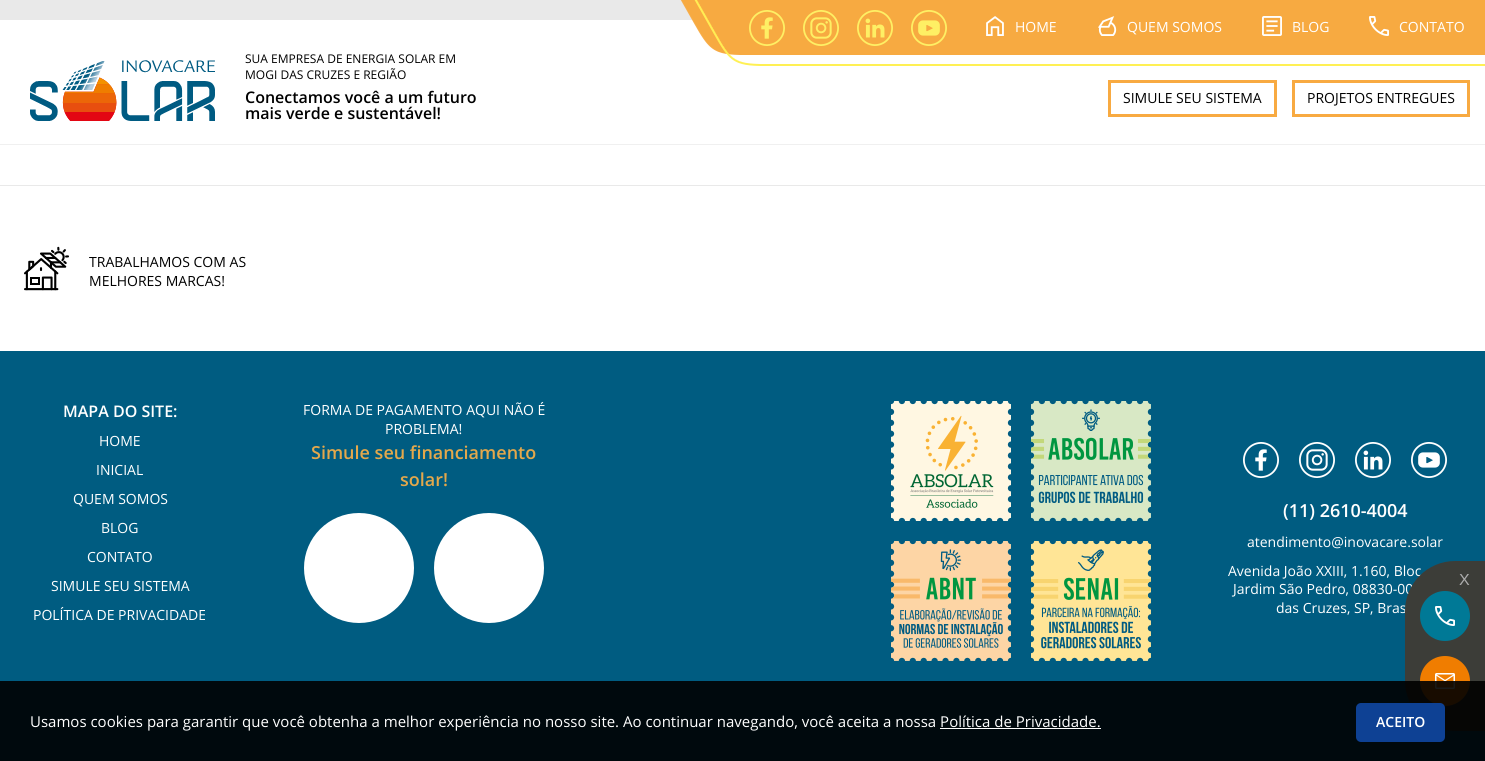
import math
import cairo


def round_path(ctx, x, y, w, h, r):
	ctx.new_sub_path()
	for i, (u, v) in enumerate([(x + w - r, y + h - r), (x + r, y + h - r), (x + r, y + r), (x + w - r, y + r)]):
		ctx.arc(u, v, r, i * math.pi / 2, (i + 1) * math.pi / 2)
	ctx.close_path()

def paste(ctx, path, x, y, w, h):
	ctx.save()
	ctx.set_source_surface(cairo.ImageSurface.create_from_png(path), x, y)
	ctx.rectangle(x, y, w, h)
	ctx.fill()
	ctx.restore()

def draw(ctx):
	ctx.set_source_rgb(1, 1, 1)
	ctx.paint()
	ctx.set_source_rgb(0.914, 0.914, 0.914)
	ctx.rectangle(0, 0, 693, 20)
	ctx.fill()
	ctx.set_source_rgb(0.941, 0.941, 0.941)
	ctx.rectangle(0, 144, 1485, 1)
	ctx.fill()
	paste(ctx, 'media/1.png', 680, 0, 805, 66)
	paste(ctx, 'media/2.png', 749, 10, 36, 36)
	paste(ctx, 'media/3.png', 803, 10, 36, 36)
	paste(ctx, 'media/4.png', 857, 10, 36, 36)
	paste(ctx, 'media/5.png', 911, 10, 36, 36)
	paste(ctx, 'media/6.png', 986, 16, 18, 20)
	ctx.select_font_face('Open Sans')
	ctx.set_font_size(14)
	ctx.set_source_rgb(1, 1, 1)
	ctx.move_to(1015, 32)
	ctx.show_text('HOME')
	paste(ctx, 'media/7.png', 1098, 16, 19, 20)
	ctx.move_to(1127, 32)
	ctx.show_text('QUEM SOMOS')
	paste(ctx, 'media/8.png', 1262, 16, 20, 20)
	ctx.move_to(1292, 32)
	ctx.show_text('BLOG')
	paste(ctx, 'media/9.png', 1369, 16, 20, 20)
	ctx.move_to(1399, 32)
	ctx.show_text('CONTATO')
	paste(ctx, 'media/10.png', 30, 60, 185, 61)
	ctx.set_font_size(12)
	ctx.set_source_rgb(0, 0, 0)
	ctx.move_to(245, 63)
	ctx.show_text('SUA EMPRESA DE ENERGIA SOLAR EM')
	ctx.move_to(245, 79)
	ctx.show_text('MOGI DAS CRUZES E REGIÃO')
	ctx.select_font_face('Open Sans SemiBold')
	ctx.set_font_size(16)
	ctx.move_to(245, 103)
	ctx.show_text('Conectamos você a um futuro')
	ctx.move_to(245, 119)
	ctx.show_text('mais verde e sustentável!')
	ctx.rectangle(1109.5, 81.5, 166, 34)
	ctx.set_source_rgb(0.969, 0.667, 0.255)
	ctx.set_line_width(3)
	ctx.stroke()
	ctx.select_font_face('Open Sans')
	ctx.set_font_size(14)
	ctx.set_source_rgb(0, 0, 0)
	ctx.move_to(1123, 103)
	ctx.show_text('SIMULE SEU SISTEMA')
	ctx.rectangle(1293.5, 81.5, 175, 34)
	ctx.set_source_rgb(0.969, 0.667, 0.255)
	ctx.stroke()
	ctx.set_source_rgb(0, 0, 0)
	ctx.move_to(1307, 103)
	ctx.show_text('PROJETOS ENTREGUES')
	ctx.set_source_rgb(0, 0.361, 0.506)
	ctx.rectangle(0, 351, 1485, 410)
	ctx.fill()
	ctx.set_source_rgb(1, 1, 1)
	for x, y, s in [
		(1228, 576, 'Avenida João XXIII, 1.160, Bloc'),
		(1233, 594, 'Jardim São Pedro, 08830-00'),
		(1276, 613, 'das Cruzes, SP, Bras'),
	]:
		ctx.move_to(x, y)
		ctx.show_text(s)
	ctx.set_source_rgb(0.235, 0.239, 0.22)
	ctx.new_path()
	ctx.move_to(1455, 561)
	ctx.line_to(1485, 561)
	ctx.line_to(1485, 731)
	ctx.line_to(1455, 731)
	ctx.curve_to(1427.5, 731, 1405, 708.5, 1405, 681)
	ctx.line_to(1405, 611)
	ctx.curve_to(1405, 583.5, 1427.5, 561, 1455, 561)
	ctx.close_path()
	ctx.fill()
	ctx.select_font_face('Liberation Sans')
	ctx.set_font_size(16)
	ctx.set_source_rgb(0.675, 0.675, 0.675)
	ctx.move_to(1459, 585)
	ctx.show_text('X')
	ctx.set_source_rgb(0, 0.475, 0.588)
	ctx.new_path()
	ctx.arc(1445, 616, 25, 0, 2 * math.pi)
	ctx.fill()
	paste(ctx, 'media/11.png', 1435, 606, 20, 20)
	ctx.set_source_rgb(0.941, 0.49, 0)
	ctx.arc(1445, 681, 25, 0, 2 * math.pi)
	ctx.fill()
	paste(ctx, 'media/12.png', 1435, 673, 20, 16)
	ctx.set_source_rgb(0.914, 0.914, 0.914)
	ctx.rectangle(0, 185, 1485, 1)
	ctx.fill()
	paste(ctx, 'media/13.png', 24, 246, 45, 45)
	ctx.select_font_face('Open Sans')
	ctx.set_font_size(14)
	ctx.set_source_rgb(0, 0, 0)
	ctx.move_to(89, 267)
	ctx.show_text('TRABALHAMOS COM AS')
	ctx.move_to(89, 286)
	ctx.show_text('MELHORES MARCAS!')
	ctx.select_font_face('Open Sans SemiBold')
	ctx.set_font_size(16)
	ctx.set_source_rgb(1, 1, 1)
	ctx.move_to(63, 417)
	ctx.show_text('MAPA DO SITE:')
	ctx.select_font_face('Open Sans')
	ctx.set_font_size(14)
	for x, y, s in [
		(99, 446, 'HOME'),
		(96, 475, 'INICIAL'),
		(73, 504, 'QUEM SOMOS'),
		(101, 533, 'BLOG'),
		(87, 562, 'CONTATO'),
		(51, 591, 'SIMULE SEU SISTEMA'),
		(33, 620, 'POLÍTICA DE PRIVACIDADE'),
		(303, 415, 'FORMA DE PAGAMENTO AQUI NÃO É'),
		(385, 434, 'PROBLEMA!'),
	]:
		ctx.move_to(x, y)
		ctx.show_text(s)
	ctx.select_font_face('Open Sans SemiBold')
	ctx.set_font_size(18)
	ctx.set_source_rgb(0.894, 0.659, 0.294)
	ctx.move_to(311, 459)
	ctx.show_text('Simule seu financiamento')
	ctx.move_to(400, 486)
	ctx.show_text('solar!')
	ctx.set_source_rgb(1, 1, 1)
	ctx.new_path()
	ctx.arc(359, 568, 55, 0, 2 * math.pi)
	ctx.fill()
	ctx.arc(489, 568, 55, 0, 2 * math.pi)
	ctx.fill()
	paste(ctx, 'media/14.png', 891, 401, 120, 120)
	paste(ctx, 'media/15.png', 1031, 401, 120, 120)
	paste(ctx, 'media/16.png', 891, 541, 120, 120)
	paste(ctx, 'media/17.png', 1031, 541, 120, 120)
	paste(ctx, 'media/18.png', 1243, 442, 36, 36)
	paste(ctx, 'media/19.png', 1299, 442, 36, 36)
	paste(ctx, 'media/20.png', 1355, 442, 36, 36)
	paste(ctx, 'media/21.png', 1411, 442, 36, 36)
	ctx.move_to(1283, 517)
	ctx.show_text('(11) 2610-4004')
	ctx.select_font_face('Open Sans')
	ctx.set_font_size(14)
	ctx.move_to(1247, 547)
	ctx.show_text('atendimento@inovacare.solar')
	ctx.set_source_rgba(0, 0, 0, 0.9)
	ctx.rectangle(0, 681, 1485, 80)
	ctx.fill()
	ctx.set_font_size(15)
	ctx.set_source_rgb(1, 1, 1)
	ctx.move_to(30, 727)
	ctx.show_text('Usamos cookies para garantir que você obtenha a melhor experiência no nosso site. Ao continuar navegando, você aceita a nossa Política de Privacidade.')
	ctx.rectangle(940, 728, 161, 1)
	ctx.fill()
	ctx.set_source_rgb(0.055, 0.255, 0.58)
	round_path(ctx, 1356, 703, 89, 39, 5)
	ctx.fill()
	ctx.select_font_face('Open Sans SemiBold')
	ctx.set_font_size(14)
	ctx.set_source_rgb(1, 1, 1)
	ctx.move_to(1376, 727)
	ctx.show_text('ACEITO')


surface = cairo.ImageSurface(cairo.FORMAT_RGB24, 1485, 761)
ctx = cairo.Context(surface)
options = cairo.FontOptions()
options.set_hint_metrics(cairo.HINT_METRICS_OFF)
options.set_hint_style(cairo.HINT_STYLE_NONE)
ctx.set_font_options(options)
ctx.set_miter_limit(4)
draw(ctx)
surface.write_to_png('image.png')
